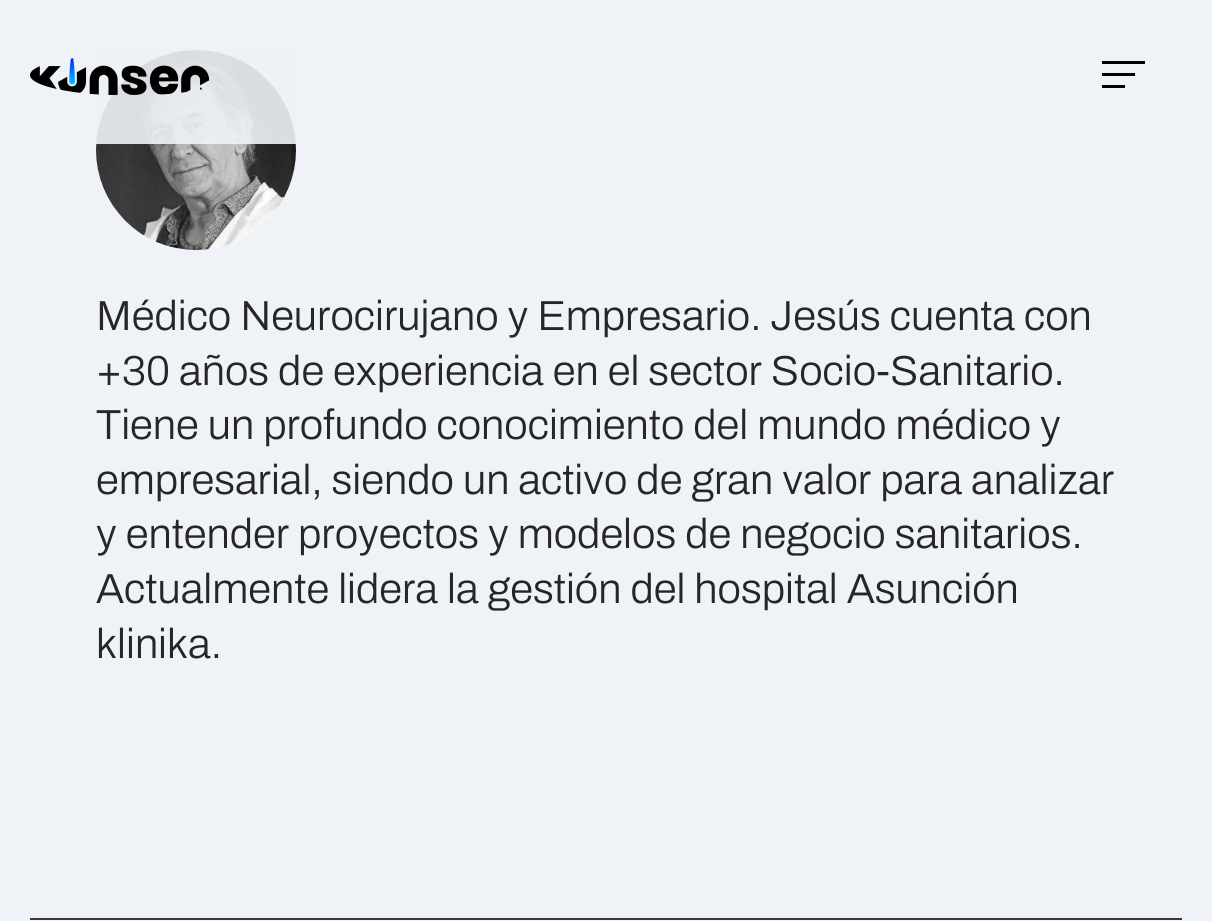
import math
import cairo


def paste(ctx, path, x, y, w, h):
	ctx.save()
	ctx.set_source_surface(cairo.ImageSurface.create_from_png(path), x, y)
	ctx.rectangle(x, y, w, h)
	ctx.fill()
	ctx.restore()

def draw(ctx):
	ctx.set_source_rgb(0.937, 0.949, 0.965)
	ctx.paint()
	paste(ctx, 'media/2.png', 96, 50, 200, 200)
	ctx.set_source_rgba(0.937, 0.949, 0.965, 0.9)
	ctx.rectangle(96, 50, 200, 94)
	ctx.fill()
	paste(ctx, 'media/1.png', 30, 58, 180, 37)
	ctx.set_source_rgb(0, 0, 0)
	ctx.new_path()
	ctx.move_to(1102, 61)
	ctx.line_to(1145, 61)
	ctx.line_to(1145, 64)
	ctx.line_to(1102, 64)
	ctx.close_path()
	ctx.move_to(1102, 73)
	ctx.line_to(1135, 73)
	ctx.line_to(1135, 76)
	ctx.line_to(1102, 76)
	ctx.close_path()
	ctx.move_to(1102, 85)
	ctx.line_to(1125, 85)
	ctx.line_to(1125, 88)
	ctx.line_to(1102, 88)
	ctx.close_path()
	ctx.fill()
	ctx.select_font_face('Archivo Light')
	ctx.set_font_size(42)
	ctx.set_source_rgb(0.149, 0.149, 0.149)
	for x, y, s in [
		(96, 330, 'Médico Neurocirujano y Empresario. Jesús cuenta con'),
		(96, 385, '+30 años de experiencia en el sector Socio-Sanitario.'),
		(96, 439, 'Tiene un profundo conocimiento del mundo médico y'),
		(96, 494, 'empresarial, siendo un activo de gran valor para analizar'),
		(96, 548, 'y entender proyectos y modelos de negocio sanitarios.'),
		(96, 603, 'Actualmente lidera la gestión del hospital Asunción'),
		(96, 658, 'klinika.'),
	]:
		ctx.move_to(x, y)
		ctx.show_text(s)
	ctx.set_source_rgb(0.231, 0.231, 0.231)
	ctx.rectangle(30, 918, 1152, 2)
	ctx.fill()


surface = cairo.ImageSurface(cairo.FORMAT_RGB24, 1212, 921)
ctx = cairo.Context(surface)
options = cairo.FontOptions()
options.set_hint_metrics(cairo.HINT_METRICS_OFF)
options.set_hint_style(cairo.HINT_STYLE_NONE)
ctx.set_font_options(options)
ctx.set_miter_limit(4)
draw(ctx)
surface.write_to_png('image.png')
